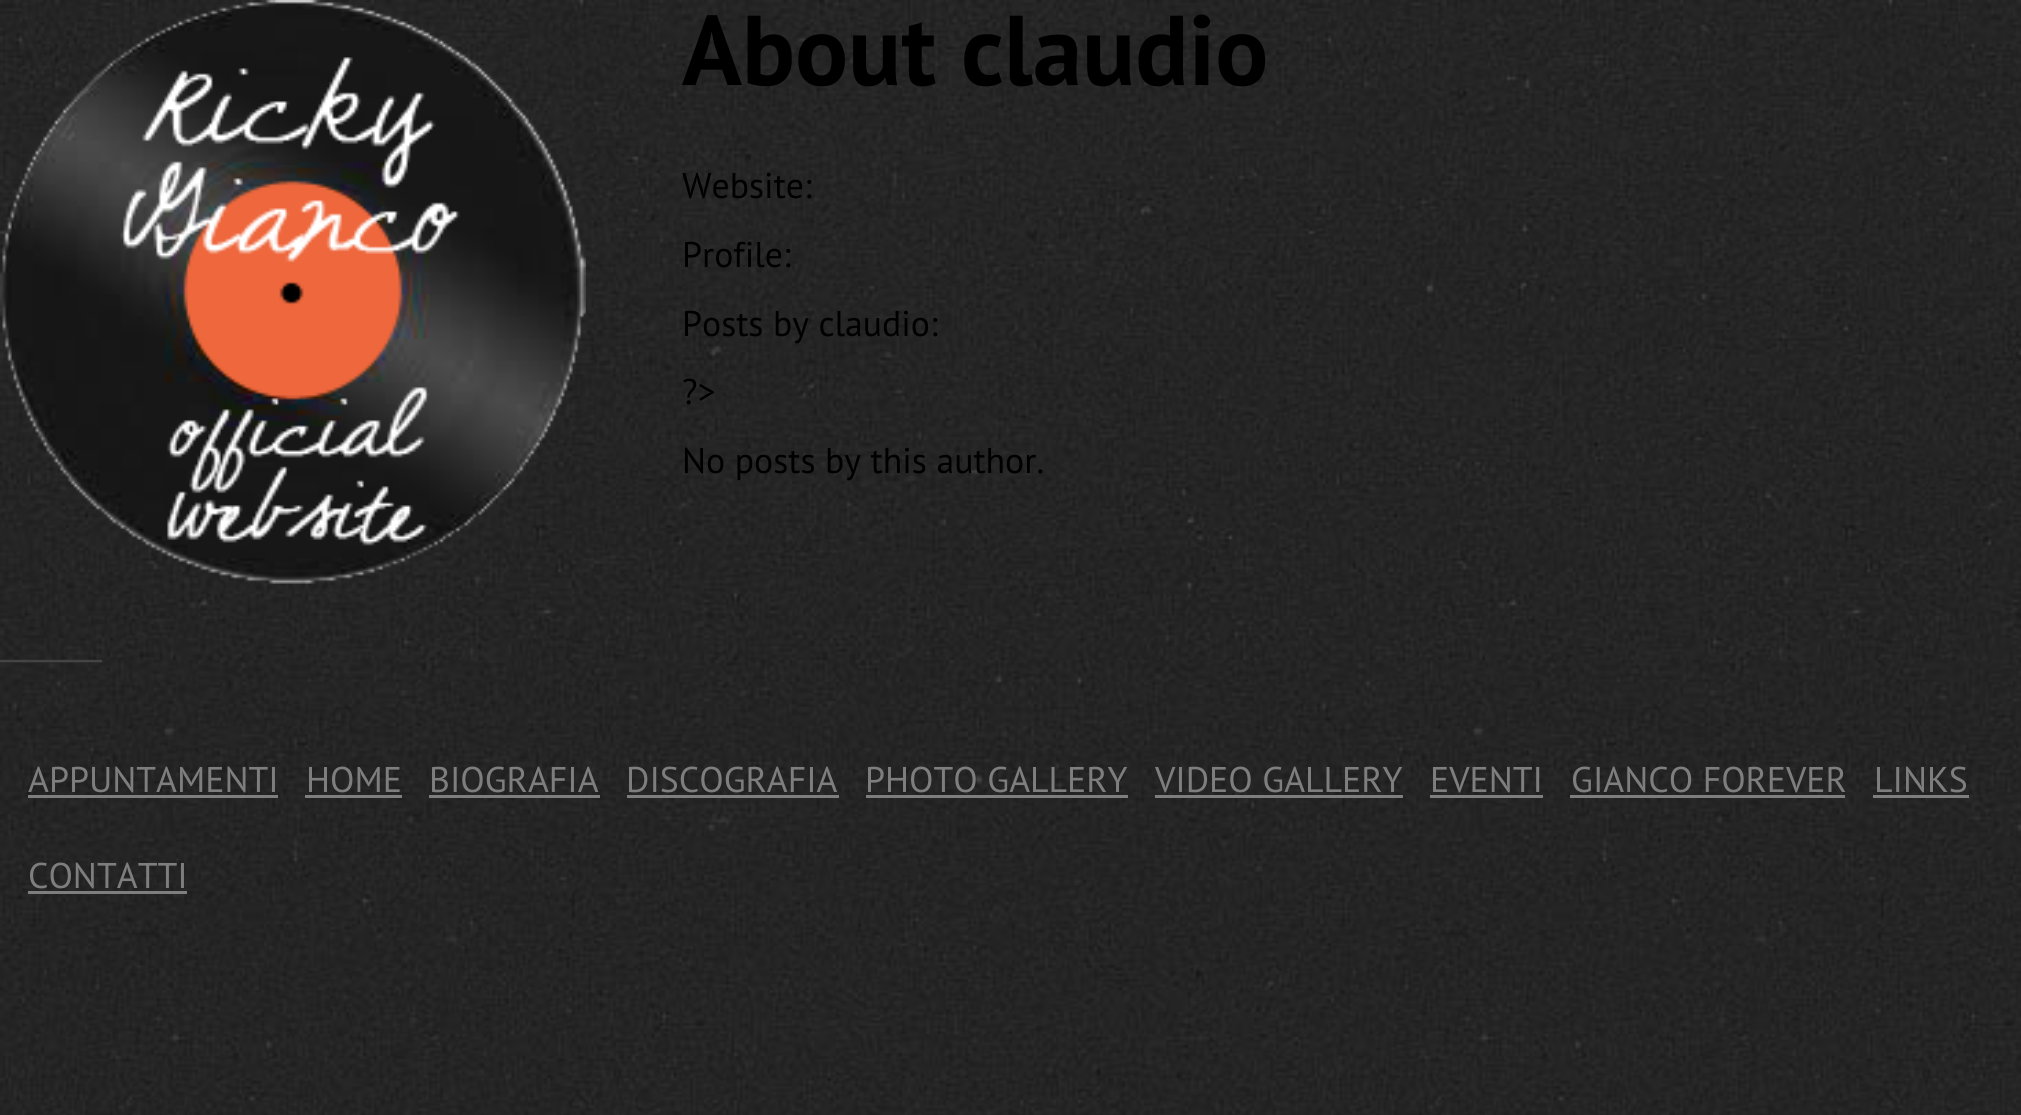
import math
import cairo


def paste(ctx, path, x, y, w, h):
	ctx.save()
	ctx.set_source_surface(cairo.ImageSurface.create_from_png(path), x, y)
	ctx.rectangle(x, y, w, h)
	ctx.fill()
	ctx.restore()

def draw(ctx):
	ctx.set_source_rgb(1, 1, 1)
	ctx.paint()
	paste(ctx, 'media/1.png', 0, 0, 2021, 1115)
	paste(ctx, 'media/2.png', 0, 0, 586, 584)
	ctx.select_font_face('PT Sans', cairo.FONT_SLANT_NORMAL, cairo.FONT_WEIGHT_BOLD)
	ctx.set_font_size(99)
	ctx.set_source_rgb(0, 0, 0)
	ctx.move_to(682, 85)
	ctx.show_text('About claudio')
	ctx.select_font_face('PT Sans')
	ctx.set_font_size(35.75)
	for x, y, s in [
		(682, 198, 'Website:'),
		(682, 267, 'Profile:'),
		(682, 336, 'Posts by claudio:'),
		(682, 404, '?>'),
		(682, 473, 'No posts by this author.'),
	]:
		ctx.move_to(x, y)
		ctx.show_text(s)
	ctx.set_source_rgb(0.267, 0.267, 0.267)
	ctx.move_to(0, 655)
	ctx.show_text('_______')
	ctx.set_source_rgb(0.494, 0.494, 0.494)
	ctx.move_to(28, 792)
	ctx.show_text('APPUNTAMENTI')
	ctx.rectangle(28, 795, 250, 3)
	ctx.fill()
	ctx.move_to(306, 792)
	ctx.show_text('HOME')
	ctx.rectangle(305, 795, 97, 3)
	ctx.fill()
	ctx.move_to(429, 792)
	ctx.show_text('BIOGRAFIA')
	ctx.rectangle(429, 795, 171, 3)
	ctx.fill()
	ctx.move_to(626, 792)
	ctx.show_text('DISCOGRAFIA')
	ctx.rectangle(627, 795, 212, 3)
	ctx.fill()
	ctx.move_to(865, 792)
	ctx.show_text('PHOTO GALLERY')
	ctx.rectangle(866, 795, 262, 3)
	ctx.fill()
	ctx.move_to(1155, 792)
	ctx.show_text('VIDEO GALLERY')
	ctx.rectangle(1155, 795, 248, 3)
	ctx.fill()
	ctx.move_to(1430, 792)
	ctx.show_text('EVENTI')
	ctx.rectangle(1430, 795, 113, 3)
	ctx.fill()
	ctx.move_to(1571, 792)
	ctx.show_text('GIANCO FOREVER')
	ctx.rectangle(1570, 795, 275, 3)
	ctx.fill()
	ctx.move_to(1874, 792)
	ctx.show_text('LINKS')
	ctx.rectangle(1873, 795, 96, 3)
	ctx.fill()
	ctx.move_to(28, 888)
	ctx.show_text('CONTATTI')
	ctx.rectangle(28, 891, 159, 3)
	ctx.fill()


surface = cairo.ImageSurface(cairo.FORMAT_RGB24, 2021, 1115)
ctx = cairo.Context(surface)
options = cairo.FontOptions()
options.set_hint_metrics(cairo.HINT_METRICS_OFF)
options.set_hint_style(cairo.HINT_STYLE_NONE)
ctx.set_font_options(options)
ctx.set_miter_limit(4)
draw(ctx)
surface.write_to_png('image.png')
